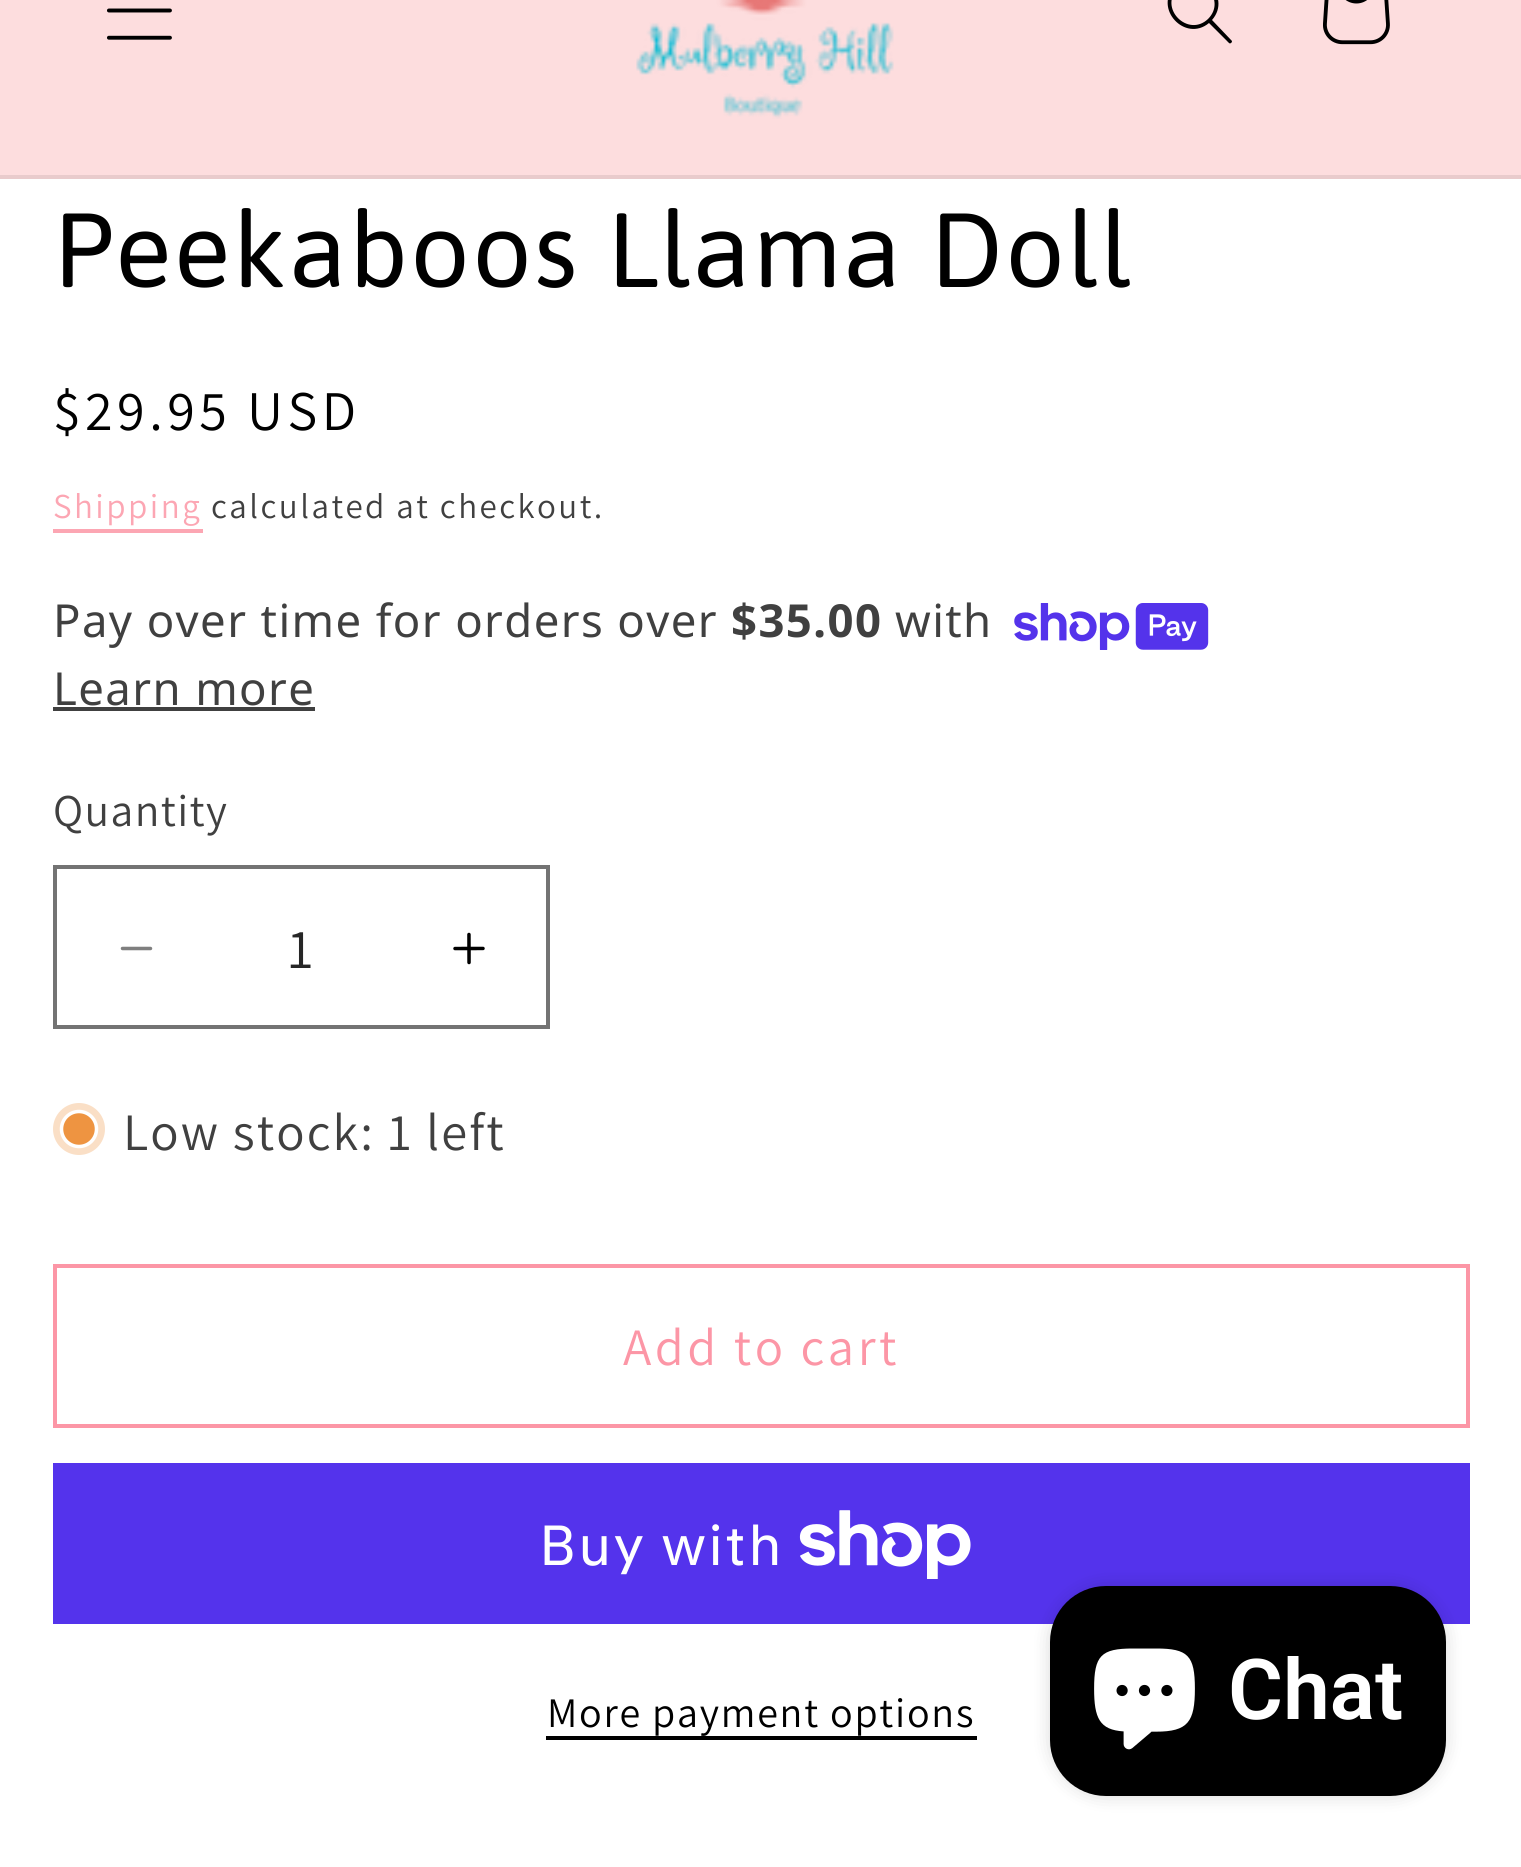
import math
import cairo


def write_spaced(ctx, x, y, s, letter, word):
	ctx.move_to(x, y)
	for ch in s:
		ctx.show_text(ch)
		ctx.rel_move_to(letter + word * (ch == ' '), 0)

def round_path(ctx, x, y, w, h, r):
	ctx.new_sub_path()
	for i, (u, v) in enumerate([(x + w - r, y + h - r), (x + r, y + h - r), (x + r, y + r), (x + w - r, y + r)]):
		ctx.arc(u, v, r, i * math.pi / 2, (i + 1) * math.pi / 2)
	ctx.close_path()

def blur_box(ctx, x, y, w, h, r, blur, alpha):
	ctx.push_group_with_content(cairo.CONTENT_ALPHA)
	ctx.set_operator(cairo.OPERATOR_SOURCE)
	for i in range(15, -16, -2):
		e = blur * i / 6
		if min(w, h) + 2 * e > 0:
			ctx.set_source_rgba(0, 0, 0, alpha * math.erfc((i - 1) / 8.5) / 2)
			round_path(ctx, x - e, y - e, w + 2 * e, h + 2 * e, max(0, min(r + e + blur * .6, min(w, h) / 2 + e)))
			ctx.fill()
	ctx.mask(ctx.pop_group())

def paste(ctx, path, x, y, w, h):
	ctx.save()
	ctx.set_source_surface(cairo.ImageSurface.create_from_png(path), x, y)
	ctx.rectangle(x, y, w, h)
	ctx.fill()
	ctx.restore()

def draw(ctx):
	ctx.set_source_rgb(1, 1, 1)
	ctx.paint()
	ctx.set_source_rgb(0.992, 0.867, 0.871)
	ctx.rectangle(0, 0, 1521, 175)
	ctx.fill()
	ctx.set_source_rgb(0.914, 0.796, 0.8)
	ctx.rectangle(0, 175, 1521, 4)
	ctx.fill()
	paste(ctx, 'media/1.png', 107, 8, 65, 32)
	paste(ctx, 'media/2.png', 636, 0, 258, 119)
	ctx.set_source_rgb(0, 0, 0)
	ctx.set_fill_rule(cairo.FILL_RULE_EVEN_ODD)
	ctx.new_path()
	ctx.move_to(1208, 19)
	ctx.curve_to(1188, 38, 1158, 8, 1178, -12)
	ctx.curve_to(1198, -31, 1228, -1, 1208, 19)
	ctx.move_to(1209, 23)
	ctx.curve_to(1185, 43, 1153, 8, 1175, -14)
	ctx.curve_to(1198, -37, 1233, -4, 1212, 20)
	ctx.line_to(1232, 41)
	ctx.curve_to(1232, 43, 1230, 44, 1229, 43)
	ctx.close_path()
	ctx.fill()
	paste(ctx, 'media/3.png', 1323, 0, 67, 45)
	ctx.select_font_face('Asap')
	ctx.set_font_size(105)
	write_spaced(ctx, 53, 287, 'Peekaboos Llama Doll', 2.1, 0)
	ctx.select_font_face('Assistant')
	ctx.set_font_size(56)
	write_spaced(ctx, 53, 430, '$29.95 USD', 4.5, 0)
	ctx.set_font_size(35)
	ctx.set_source_rgb(0.988, 0.651, 0.702)
	write_spaced(ctx, 53, 518, 'Shipping', 2.45, 0)
	ctx.rectangle(53, 529, 150, 4)
	ctx.fill()
	ctx.set_source_rgb(0.251, 0.251, 0.251)
	write_spaced(ctx, 211, 518, 'calculated at checkout.', 2.45, 0)
	ctx.select_font_face('Noto Sans')
	ctx.set_font_size(45.5)
	write_spaced(ctx, 53, 637, 'Pay over time for orders over', 1.4, 0)
	ctx.select_font_face('Noto Sans', cairo.FONT_SLANT_NORMAL, cairo.FONT_WEIGHT_BOLD)
	write_spaced(ctx, 731, 637, '$35.00', 1.4, 0)
	ctx.select_font_face('Noto Sans')
	write_spaced(ctx, 895, 637, 'with', 1.4, 0)
	paste(ctx, 'media/4.png', 1014, 603, 195, 47)
	write_spaced(ctx, 53, 705, 'Learn more', 1.4, 0)
	ctx.rectangle(53, 707, 262, 4)
	ctx.fill()
	ctx.select_font_face('Assistant')
	write_spaced(ctx, 53, 826, 'Quantity', 1.4, 0)
	paste(ctx, 'media/5.png', 120, 946, 33, 5)
	paste(ctx, 'media/6.png', 453, 932, 32, 33)
	ctx.rectangle(55, 867, 493, 160)
	ctx.set_source_rgb(0.451, 0.451, 0.451)
	ctx.set_line_width(4)
	ctx.stroke()
	ctx.set_font_size(56)
	ctx.set_source_rgb(0.149, 0.149, 0.149)
	ctx.move_to(288, 968)
	ctx.show_text('1')
	ctx.set_source_rgb(0.98, 0.875, 0.776)
	ctx.new_path()
	ctx.arc(79, 1129, 26, 0, 2 * math.pi)
	ctx.fill()
	ctx.set_source_rgb(0.933, 0.58, 0.255)
	ctx.arc(79, 1129, 17.5, 0, 2 * math.pi)
	ctx.fill_preserve()
	ctx.set_source_rgb(1, 1, 1)
	ctx.set_line_width(3.5)
	ctx.stroke()
	ctx.set_font_size(52.5)
	ctx.set_source_rgb(0.251, 0.251, 0.251)
	write_spaced(ctx, 123, 1150, 'Low stock: 1 left', 2.1, 0)
	ctx.rectangle(55, 1266, 1413, 160)
	ctx.set_source_rgb(0.988, 0.588, 0.651)
	ctx.set_line_width(4)
	ctx.stroke()
	write_spaced(ctx, 623, 1365, 'Add to cart', 3.5, 0)
	ctx.set_source_rgb(0.329, 0.2, 0.922)
	ctx.rectangle(53, 1463, 1417, 161)
	ctx.fill()
	ctx.select_font_face('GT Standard')
	ctx.set_font_size(56)
	ctx.set_source_rgb(1, 1, 1)
	write_spaced(ctx, 539, 1565, 'Buy with', 2.1, 0)
	paste(ctx, 'media/7.png', 799, 1510, 172, 69)
	ctx.select_font_face('Assistant')
	ctx.set_font_size(42)
	ctx.set_source_rgb(0, 0, 0)
	write_spaced(ctx, 547, 1727, 'More payment options', 1.75, 0)
	ctx.rectangle(546, 1736, 431, 4)
	ctx.fill()
	ctx.set_source_rgb(0, 0, 0)
	blur_box(ctx, 1050, 1586, 396, 210, 56, 9, 0.15)
	ctx.set_source_rgb(0, 0, 0)
	round_path(ctx, 1050, 1586, 396, 210, 56)
	ctx.fill()
	paste(ctx, 'media/8.png', 1094, 1648, 101, 102)
	ctx.select_font_face('Roboto SemiBold')
	ctx.set_font_size(84)
	ctx.set_source_rgb(1, 1, 1)
	ctx.move_to(1228, 1719)
	ctx.show_text('Chat')


surface = cairo.ImageSurface(cairo.FORMAT_RGB24, 1521, 1867)
ctx = cairo.Context(surface)
options = cairo.FontOptions()
options.set_hint_metrics(cairo.HINT_METRICS_OFF)
options.set_hint_style(cairo.HINT_STYLE_NONE)
ctx.set_font_options(options)
ctx.set_miter_limit(4)
draw(ctx)
surface.write_to_png('image.png')
